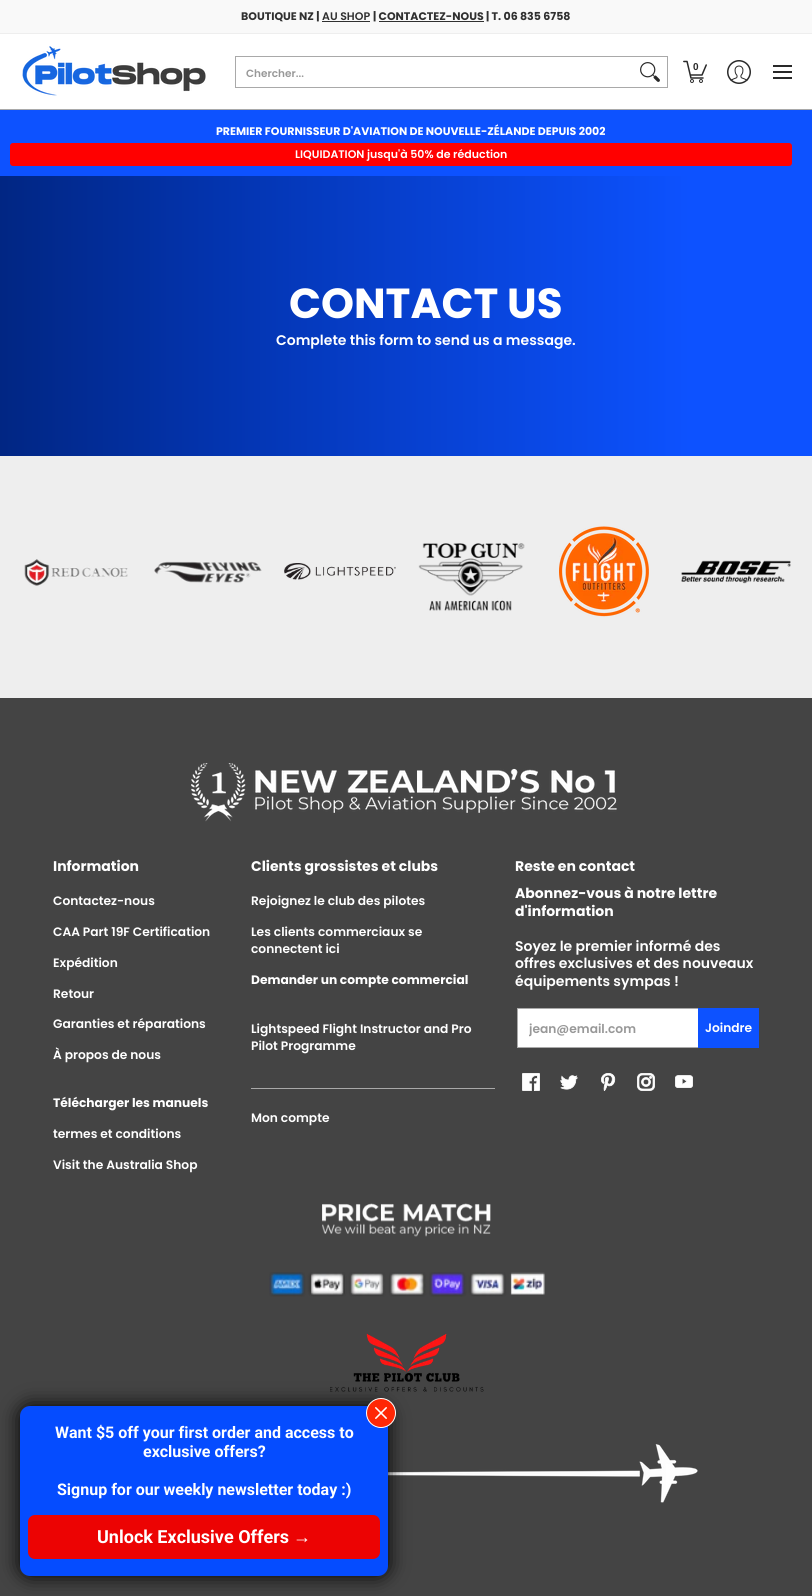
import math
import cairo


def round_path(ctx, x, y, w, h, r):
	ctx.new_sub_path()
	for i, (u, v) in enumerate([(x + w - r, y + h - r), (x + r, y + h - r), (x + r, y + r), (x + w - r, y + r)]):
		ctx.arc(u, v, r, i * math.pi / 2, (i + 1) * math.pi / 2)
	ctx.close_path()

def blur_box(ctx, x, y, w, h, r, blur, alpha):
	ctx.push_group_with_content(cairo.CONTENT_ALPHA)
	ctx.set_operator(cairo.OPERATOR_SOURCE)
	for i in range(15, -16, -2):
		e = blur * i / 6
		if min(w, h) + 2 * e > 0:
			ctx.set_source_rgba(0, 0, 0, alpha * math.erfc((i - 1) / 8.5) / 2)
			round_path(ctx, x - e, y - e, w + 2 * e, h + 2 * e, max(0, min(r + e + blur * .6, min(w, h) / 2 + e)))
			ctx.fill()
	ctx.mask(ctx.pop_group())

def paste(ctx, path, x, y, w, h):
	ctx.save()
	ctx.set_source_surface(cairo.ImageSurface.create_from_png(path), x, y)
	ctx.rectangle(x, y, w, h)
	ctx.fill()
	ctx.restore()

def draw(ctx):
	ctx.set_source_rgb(1, 1, 1)
	ctx.paint()
	ctx.set_source_rgb(0.976, 0.976, 0.976)
	ctx.rectangle(0, 0, 812, 33)
	ctx.fill()
	ctx.set_source_rgb(0.933, 0.933, 0.933)
	ctx.rectangle(0, 33, 812, 1)
	ctx.fill()
	ctx.select_font_face('Poppins', cairo.FONT_SLANT_NORMAL, cairo.FONT_WEIGHT_BOLD)
	ctx.set_font_size(11)
	ctx.set_source_rgb(0.188, 0.188, 0.188)
	ctx.move_to(241, 20)
	ctx.show_text('BOUTIQUE NZ |')
	ctx.select_font_face('Poppins SemiBold')
	ctx.move_to(322, 20)
	ctx.show_text('AU SHOP')
	ctx.rectangle(322, 21, 48, 1)
	ctx.fill()
	ctx.select_font_face('Poppins', cairo.FONT_SLANT_NORMAL, cairo.FONT_WEIGHT_BOLD)
	ctx.move_to(373, 20)
	ctx.show_text('| CONTACTEZ-NOUS')
	ctx.move_to(486, 20)
	ctx.show_text('| T. 06 835 6758')
	ctx.rectangle(379, 21, 105, 1)
	ctx.fill()
	ctx.set_source_rgb(0.663, 0.663, 0.663)
	ctx.rectangle(0, 109, 812, 1)
	ctx.fill()
	paste(ctx, 'media/1.png', 22, 46, 184, 50)
	ctx.rectangle(235.5, 56.5, 432, 31)
	ctx.set_line_width(1)
	ctx.stroke()
	ctx.select_font_face('Poppins SemiBold')
	ctx.set_font_size(10.5)
	ctx.set_source_rgb(0.596, 0.596, 0.596)
	ctx.move_to(246, 77)
	ctx.show_text('Chercher...')
	paste(ctx, 'media/2.png', 640, 62, 20, 20)
	paste(ctx, 'media/3.png', 683, 60, 24, 23)
	ctx.select_font_face('Liberation Sans', cairo.FONT_SLANT_NORMAL, cairo.FONT_WEIGHT_BOLD)
	ctx.set_font_size(10)
	ctx.set_source_rgb(0.161, 0.161, 0.161)
	ctx.move_to(693, 70)
	ctx.show_text('0')
	paste(ctx, 'media/4.png', 727, 60, 24, 24)
	ctx.rectangle(773, 65, 19, 2)
	ctx.rectangle(773, 77, 19, 2)
	ctx.rectangle(773, 71, 19, 2)
	ctx.fill()
	ctx.set_source_rgb(0.051, 0.322, 1)
	ctx.rectangle(0, 110, 812, 66)
	ctx.fill()
	ctx.select_font_face('Poppins', cairo.FONT_SLANT_NORMAL, cairo.FONT_WEIGHT_BOLD)
	ctx.set_font_size(11)
	ctx.set_source_rgb(1, 1, 1)
	ctx.move_to(216, 135)
	ctx.show_text('PREMIER FOURNISSEUR D\'AVIATION DE NOUVELLE-ZÉLANDE DEPUIS 2002')
	ctx.set_source_rgb(1, 0, 0)
	round_path(ctx, 10, 143, 782, 23, 3)
	ctx.fill()
	ctx.select_font_face('Poppins SemiBold')
	ctx.set_source_rgb(1, 1, 1)
	ctx.move_to(295, 158)
	ctx.show_text('LIQUIDATION jusqu\'à 50% de réduction')
	gradient = cairo.LinearGradient(0, 316, 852, 316)
	gradient.add_color_stop_rgba(0, 0.004, 0.149, 0.514, 1)
	gradient.add_color_stop_rgba(0.26, 0.012, 0.204, 0.686, 1)
	gradient.add_color_stop_rgba(0.81, 0.051, 0.322, 1, 1)
	ctx.set_source(gradient)
	ctx.rectangle(0, 176, 812, 280)
	ctx.fill()
	ctx.select_font_face('Poppins', cairo.FONT_SLANT_NORMAL, cairo.FONT_WEIGHT_BOLD)
	ctx.set_font_size(42)
	ctx.set_source_rgb(1, 1, 1)
	ctx.move_to(289, 318)
	ctx.show_text('CONTACT US')
	ctx.select_font_face('Poppins SemiBold')
	ctx.set_font_size(14)
	ctx.move_to(276, 345)
	ctx.show_text('Complete this form to send us a message.')
	ctx.set_source_rgb(0.933, 0.933, 0.933)
	ctx.rectangle(0, 456, 812, 242)
	ctx.fill()
	paste(ctx, 'media/5.png', 24, 559, 104, 27)
	paste(ctx, 'media/6.png', 154, 561, 108, 22)
	paste(ctx, 'media/7.png', 284, 563, 112, 17)
	paste(ctx, 'media/8.png', 418, 543, 107, 68)
	paste(ctx, 'media/9.png', 559, 526, 90, 91)
	paste(ctx, 'media/10.png', 681, 560, 110, 24)
	ctx.set_source_rgb(0.267, 0.267, 0.267)
	ctx.rectangle(0, 698, 812, 898)
	ctx.fill()
	paste(ctx, 'media/11.png', 191, 763, 426, 59)
	ctx.select_font_face('Poppins', cairo.FONT_SLANT_NORMAL, cairo.FONT_WEIGHT_BOLD)
	ctx.set_source_rgb(1, 1, 1)
	ctx.move_to(53, 871)
	ctx.show_text('Information')
	ctx.select_font_face('Poppins SemiBold')
	ctx.set_font_size(12.25)
	for x, y, s in [
		(53, 905, 'Contactez-nous'),
		(53, 936, 'CAA Part 19F Certification'),
		(53, 967, 'Expédition'),
		(53, 998, 'Retour'),
		(53, 1028, 'Garanties et réparations'),
		(53, 1059, 'À propos de nous'),
	]:
		ctx.move_to(x, y)
		ctx.show_text(s)
	ctx.select_font_face('Poppins', cairo.FONT_SLANT_NORMAL, cairo.FONT_WEIGHT_BOLD)
	ctx.move_to(53, 1107)
	ctx.show_text('Télécharger les manuels')
	ctx.select_font_face('Poppins SemiBold')
	ctx.move_to(53, 1138)
	ctx.show_text('termes et conditions')
	ctx.move_to(53, 1169)
	ctx.show_text('Visit the Australia Shop')
	ctx.select_font_face('Poppins', cairo.FONT_SLANT_NORMAL, cairo.FONT_WEIGHT_BOLD)
	ctx.set_font_size(14)
	ctx.move_to(251, 871)
	ctx.show_text('Clients grossistes et clubs')
	ctx.select_font_face('Poppins SemiBold')
	ctx.set_font_size(12.25)
	for x, y, s in [
		(251, 905, 'Rejoignez le club des pilotes'),
		(251, 936, 'Les clients commerciaux se'),
		(251, 953, 'connectent ici'),
	]:
		ctx.move_to(x, y)
		ctx.show_text(s)
	ctx.select_font_face('Poppins', cairo.FONT_SLANT_NORMAL, cairo.FONT_WEIGHT_BOLD)
	ctx.move_to(251, 984)
	ctx.show_text('Demander un compte commercial')
	ctx.select_font_face('Poppins SemiBold')
	ctx.move_to(251, 1033)
	ctx.show_text('Lightspeed Flight Instructor and Pro')
	ctx.move_to(251, 1050)
	ctx.show_text('Pilot Programme')
	ctx.set_source_rgb(0.663, 0.663, 0.663)
	ctx.rectangle(251, 1088, 244, 1)
	ctx.fill()
	ctx.set_source_rgb(1, 1, 1)
	ctx.move_to(251, 1122)
	ctx.show_text('Mon compte')
	ctx.select_font_face('Poppins', cairo.FONT_SLANT_NORMAL, cairo.FONT_WEIGHT_BOLD)
	ctx.set_font_size(14)
	for x, y, s in [
		(515, 871, 'Reste en contact'),
		(515, 898, 'Abonnez-vous à notre lettre'),
		(515, 916, 'd\'information'),
	]:
		ctx.move_to(x, y)
		ctx.show_text(s)
	ctx.select_font_face('Poppins SemiBold')
	for x, y, s in [
		(515, 951, 'Soyez le premier informé des'),
		(515, 968, 'offres exclusives et des nouveaux'),
		(515, 986, 'équipements sympas !'),
	]:
		ctx.move_to(x, y)
		ctx.show_text(s)
	ctx.rectangle(518, 1009, 180, 38)
	ctx.fill()
	ctx.rectangle(517.5, 1008.5, 182, 39)
	ctx.set_source_rgb(0.663, 0.663, 0.663)
	ctx.stroke()
	ctx.save()
	ctx.rectangle(529, 1020, 159, 18)
	ctx.clip()
	ctx.set_font_size(12.25)
	ctx.set_source_rgb(0.596, 0.596, 0.596)
	ctx.move_to(529, 1033)
	ctx.show_text('jean@email.com')
	ctx.restore()
	ctx.set_source_rgb(0.051, 0.322, 1)
	ctx.rectangle(698, 1008, 61, 40)
	ctx.fill()
	ctx.set_font_size(12.25)
	ctx.set_source_rgb(1, 1, 1)
	ctx.move_to(705, 1032)
	ctx.show_text('Joindre')
	paste(ctx, 'media/12.png', 522, 1073, 18, 18)
	paste(ctx, 'media/13.png', 560, 1075, 18, 15)
	paste(ctx, 'media/14.png', 601, 1073, 15, 18)
	paste(ctx, 'media/15.png', 637, 1073, 18, 18)
	paste(ctx, 'media/16.png', 675, 1075, 18, 13)
	paste(ctx, 'media/17.png', 322, 1203, 169, 34)
	paste(ctx, 'media/18.png', 269, 1272, 276, 25)
	paste(ctx, 'media/19.png', 330, 1333, 154, 59)
	paste(ctx, 'media/20.png', 388, 1444, 310, 59)
	ctx.set_source_rgb(0, 0, 0)
	blur_box(ctx, 20, 1406, 368, 170, 10, 10, 1)
	ctx.set_source_rgb(0.02, 0.298, 1)
	round_path(ctx, 20, 1406, 368, 170, 10)
	ctx.fill()
	ctx.set_source_rgb(1, 0.153, 0.02)
	ctx.arc(381, 1413, 14.5, 0, 2 * math.pi)
	ctx.fill_preserve()
	ctx.set_source_rgb(1, 1, 1)
	ctx.stroke()
	paste(ctx, 'media/21.png', 375, 1407, 12, 12)
	ctx.select_font_face('Roboto', cairo.FONT_SLANT_NORMAL, cairo.FONT_WEIGHT_BOLD)
	ctx.set_font_size(16)
	for x, y, s in [
		(55, 1438, 'Want $5 off your first order and access to'),
		(143, 1457, 'exclusive offers?'),
		(57, 1495, 'Signup for our weekly newsletter today :)'),
	]:
		ctx.move_to(x, y)
		ctx.show_text(s)
	ctx.set_source_rgb(0.925, 0.012, 0.012)
	round_path(ctx, 28, 1515, 352, 44, 7)
	ctx.fill()
	ctx.set_font_size(18)
	ctx.set_source_rgb(1, 1, 1)
	ctx.move_to(97, 1543)
	ctx.show_text('Unlock Exclusive Offers')
	ctx.select_font_face('Liberation Sans', cairo.FONT_SLANT_NORMAL, cairo.FONT_WEIGHT_BOLD)
	ctx.move_to(293, 1543)
	ctx.show_text('→')


surface = cairo.ImageSurface(cairo.FORMAT_RGB24, 812, 1596)
ctx = cairo.Context(surface)
options = cairo.FontOptions()
options.set_hint_metrics(cairo.HINT_METRICS_OFF)
options.set_hint_style(cairo.HINT_STYLE_NONE)
ctx.set_font_options(options)
ctx.set_miter_limit(4)
draw(ctx)
surface.write_to_png('image.png')
